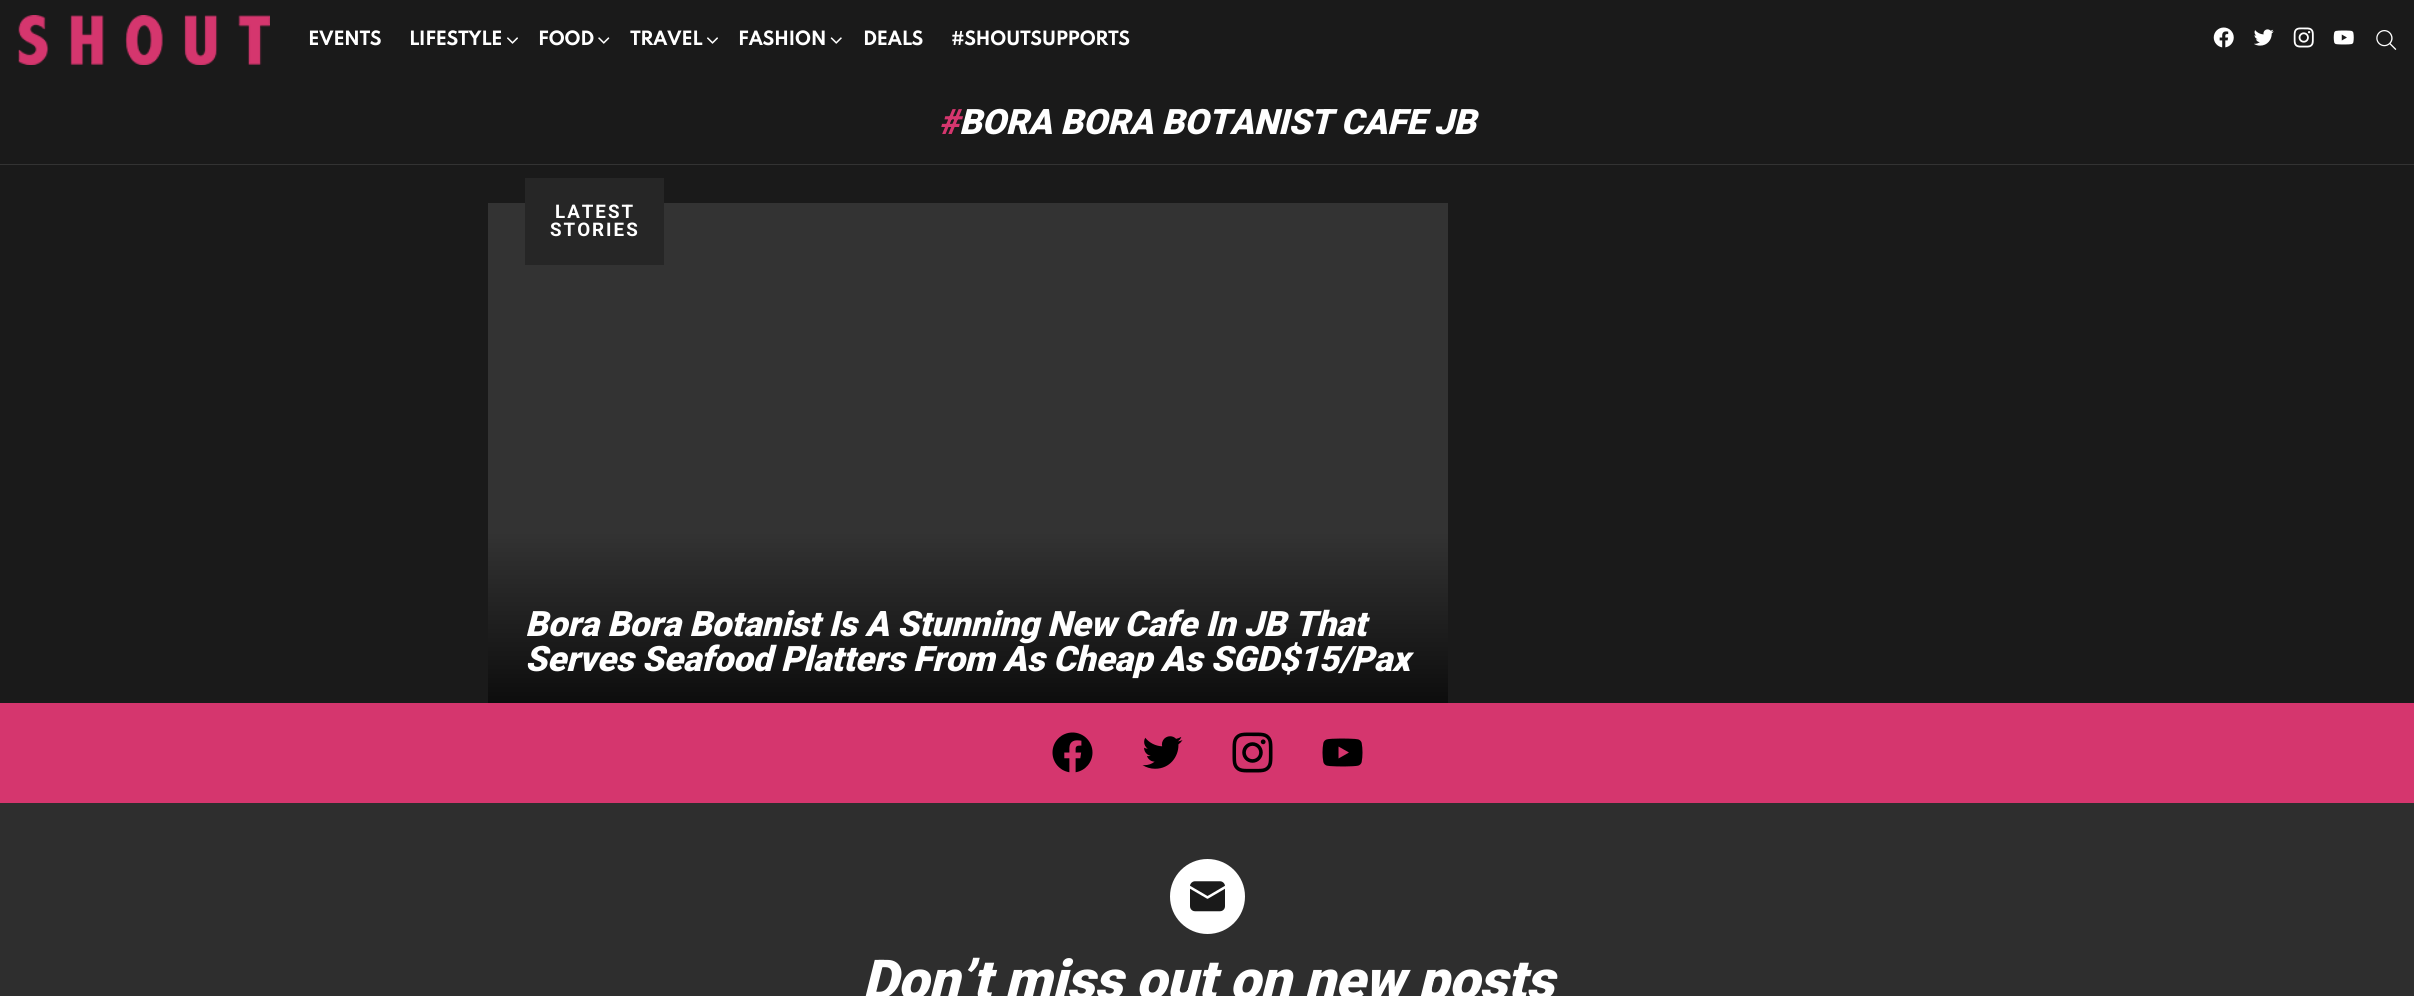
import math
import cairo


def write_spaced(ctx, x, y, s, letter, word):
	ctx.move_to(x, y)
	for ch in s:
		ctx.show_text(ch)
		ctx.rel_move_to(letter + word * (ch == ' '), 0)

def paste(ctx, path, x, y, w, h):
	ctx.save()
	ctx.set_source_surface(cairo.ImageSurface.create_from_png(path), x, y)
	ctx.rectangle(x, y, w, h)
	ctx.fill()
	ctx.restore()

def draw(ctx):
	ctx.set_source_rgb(0.102, 0.102, 0.102)
	ctx.paint()
	paste(ctx, 'media/1.png', 18, 15, 252, 50)
	ctx.select_font_face('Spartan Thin', cairo.FONT_SLANT_NORMAL, cairo.FONT_WEIGHT_BOLD)
	ctx.set_font_size(17.5)
	ctx.set_source_rgb(1, 1, 1)
	write_spaced(ctx, 308, 45, 'EVENTS', -0.5, 0)
	write_spaced(ctx, 409, 45, 'LIFESTYLE', -0.5, 0)
	paste(ctx, 'media/2.png', 507, 37, 11, 7)
	write_spaced(ctx, 538, 45, 'FOOD', -0.5, 0)
	paste(ctx, 'media/3.png', 598, 37, 12, 7)
	write_spaced(ctx, 630, 45, 'TRAVEL', -0.5, 0)
	paste(ctx, 'media/2.png', 707, 37, 11, 7)
	write_spaced(ctx, 738, 45, 'FASHION', -0.5, 0)
	paste(ctx, 'media/4.png', 830, 37, 12, 7)
	write_spaced(ctx, 863, 45, 'DEALS', -0.5, 0)
	write_spaced(ctx, 951, 45, '#SHOUTSUPPORTS', -0.5, 0)
	paste(ctx, 'media/5.png', 2213, 27, 21, 21)
	paste(ctx, 'media/6.png', 2254, 29, 20, 17)
	paste(ctx, 'media/7.png', 2293, 27, 21, 21)
	paste(ctx, 'media/8.png', 2333, 30, 21, 15)
	paste(ctx, 'media/9.png', 2376, 30, 21, 20)
	ctx.select_font_face('Roboto Black', cairo.FONT_SLANT_ITALIC)
	ctx.set_font_size(35)
	ctx.set_source_rgb(0.835, 0.212, 0.431)
	write_spaced(ctx, 939, 134, '#', -0.18, 0)
	ctx.set_source_rgb(1, 1, 1)
	write_spaced(ctx, 959, 134, 'BORA BORA BOTANIST CAFE JB', -0.18, 0)
	ctx.set_source_rgb(0.2, 0.2, 0.2)
	ctx.rectangle(0, 164, 2414, 1)
	ctx.rectangle(488, 203, 960, 330)
	ctx.fill()
	ctx.set_source_rgb(0.149, 0.149, 0.149)
	ctx.rectangle(525, 178, 139, 87)
	ctx.fill()
	ctx.select_font_face('Roboto', cairo.FONT_SLANT_NORMAL, cairo.FONT_WEIGHT_BOLD)
	ctx.set_font_size(18.75)
	ctx.set_source_rgb(1, 1, 1)
	write_spaced(ctx, 555, 218, 'LATEST', 2, 0)
	write_spaced(ctx, 550, 236, 'STORIES', 2, 0)
	gradient = cairo.LinearGradient(968, 532, 968, 703)
	gradient.add_color_stop_rgba(0, 0.2, 0.2, 0.2, 1)
	gradient.add_color_stop_rgba(1, 0.051, 0.051, 0.051, 1)
	ctx.set_source(gradient)
	ctx.rectangle(488, 533, 960, 170)
	ctx.fill()
	ctx.select_font_face('Roboto Black', cairo.FONT_SLANT_ITALIC)
	ctx.set_font_size(35)
	ctx.set_source_rgb(1, 1, 1)
	write_spaced(ctx, 525, 636, 'Bora Bora Botanist Is A Stunning New Cafe In JB That', -0.18, 0)
	write_spaced(ctx, 525, 671, 'Serves Seafood Platters From As Cheap As SGD$15/Pax', -0.18, 0)
	ctx.set_source_rgb(0.835, 0.212, 0.431)
	ctx.rectangle(0, 703, 2414, 100)
	ctx.fill()
	paste(ctx, 'media/10.png', 1052, 732, 41, 41)
	paste(ctx, 'media/11.png', 1142, 736, 41, 33)
	paste(ctx, 'media/12.png', 1232, 732, 41, 41)
	paste(ctx, 'media/13.png', 1322, 738, 41, 29)
	ctx.set_source_rgb(0.18, 0.18, 0.18)
	ctx.rectangle(0, 803, 2414, 193)
	ctx.fill()
	ctx.set_source_rgb(1, 1, 1)
	ctx.arc(1207.5, 896.5, 37.5, 0, 2 * math.pi)
	ctx.fill()
	paste(ctx, 'media/14.png', 1190, 881, 35, 31)
	ctx.set_font_size(55)
	write_spaced(ctx, 862, 999, 'Don’t miss out on new posts', -0.25, 0)


surface = cairo.ImageSurface(cairo.FORMAT_RGB24, 2414, 996)
ctx = cairo.Context(surface)
options = cairo.FontOptions()
options.set_hint_metrics(cairo.HINT_METRICS_OFF)
options.set_hint_style(cairo.HINT_STYLE_NONE)
ctx.set_font_options(options)
ctx.set_miter_limit(4)
draw(ctx)
surface.write_to_png('image.png')
